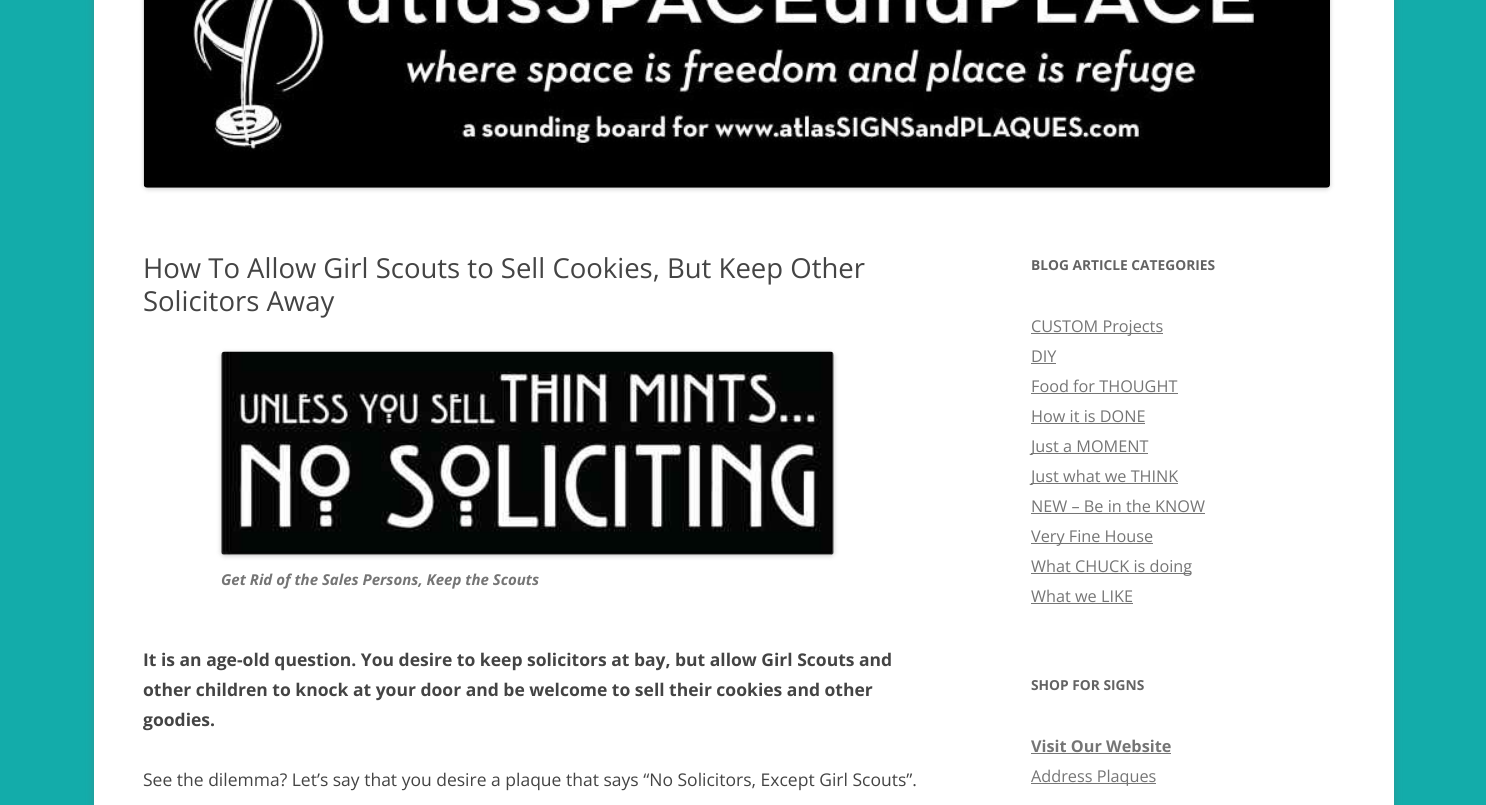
import math
import cairo


def round_path(ctx, x, y, w, h, r):
	ctx.new_sub_path()
	for i, (u, v) in enumerate([(x + w - r, y + h - r), (x + r, y + h - r), (x + r, y + r), (x + w - r, y + r)]):
		ctx.arc(u, v, r, i * math.pi / 2, (i + 1) * math.pi / 2)
	ctx.close_path()

def blur_box(ctx, x, y, w, h, r, blur, alpha):
	ctx.push_group_with_content(cairo.CONTENT_ALPHA)
	ctx.set_operator(cairo.OPERATOR_SOURCE)
	for i in range(15, -16, -2):
		e = blur * i / 6
		if min(w, h) + 2 * e > 0:
			ctx.set_source_rgba(0, 0, 0, alpha * math.erfc((i - 1) / 8.5) / 2)
			round_path(ctx, x - e, y - e, w + 2 * e, h + 2 * e, max(0, min(r + e + blur * .6, min(w, h) / 2 + e)))
			ctx.fill()
	ctx.mask(ctx.pop_group())

def paste(ctx, path, x, y, w, h):
	ctx.save()
	ctx.set_source_surface(cairo.ImageSurface.create_from_png(path), x, y)
	ctx.rectangle(x, y, w, h)
	ctx.fill()
	ctx.restore()

def draw(ctx):
	ctx.set_source_rgb(0.075, 0.675, 0.667)
	ctx.paint()
	ctx.set_source_rgb(0.392, 0.392, 0.392)
	blur_box(ctx, 94, -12, 1300, 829, 0, 4, 0.3)
	ctx.set_source_rgb(1, 1, 1)
	ctx.rectangle(94, 0, 1300, 805)
	ctx.fill()
	ctx.set_source_rgb(0, 0, 0)
	blur_box(ctx, 144, -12, 1186, 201, 4, 2.5, 0.2)
	paste(ctx, 'media/1.png', 143, 0, 1187, 188)
	ctx.select_font_face('Open Sans')
	ctx.set_font_size(27.5)
	ctx.set_source_rgb(0.267, 0.267, 0.267)
	ctx.move_to(143, 278)
	ctx.show_text('How To Allow Girl Scouts to Sell Cookies, But Keep Other')
	ctx.move_to(143, 311)
	ctx.show_text('Solicitors Away')
	ctx.set_source_rgb(0, 0, 0)
	blur_box(ctx, 221, 353, 613, 203, 4, 2.5, 0.2)
	paste(ctx, 'media/2.png', 221, 351, 613, 205)
	ctx.select_font_face('Open Sans', cairo.FONT_SLANT_ITALIC, cairo.FONT_WEIGHT_BOLD)
	ctx.set_font_size(15)
	ctx.set_source_rgb(0.459, 0.459, 0.459)
	ctx.move_to(221, 585)
	ctx.show_text('Get Rid of the Sales Persons, Keep the Scouts')
	ctx.select_font_face('Open Sans', cairo.FONT_SLANT_NORMAL, cairo.FONT_WEIGHT_BOLD)
	ctx.set_font_size(17.5)
	ctx.set_source_rgb(0.267, 0.267, 0.267)
	for x, y, s in [
		(143, 666, 'It is an age-old question. You desire to keep solicitors at bay, but allow Girl Scouts and'),
		(143, 696, 'other children to knock at your door and be welcome to sell their cookies and other'),
		(143, 726, 'goodies.'),
	]:
		ctx.move_to(x, y)
		ctx.show_text(s)
	ctx.select_font_face('Open Sans')
	ctx.move_to(143, 786)
	ctx.show_text('See the dilemma? Let’s say that you desire a plaque that says “No Solicitors, Except Girl Scouts”.')
	ctx.select_font_face('Open Sans', cairo.FONT_SLANT_NORMAL, cairo.FONT_WEIGHT_BOLD)
	ctx.set_font_size(13.75)
	ctx.set_source_rgb(0.388, 0.388, 0.388)
	ctx.move_to(1031, 270)
	ctx.show_text('BLOG ARTICLE CATEGORIES')
	ctx.set_source_rgb(0.459, 0.459, 0.459)
	ctx.rectangle(1031, 333, 132, 1)
	ctx.fill()
	ctx.select_font_face('Open Sans')
	ctx.set_font_size(16.25)
	ctx.move_to(1031, 332)
	ctx.show_text('CUSTOM Projects')
	ctx.move_to(1031, 362)
	ctx.show_text('DIY')
	ctx.rectangle(1031, 363, 25, 1)
	ctx.fill()
	ctx.move_to(1031, 392)
	ctx.show_text('Food for THOUGHT')
	ctx.rectangle(1031, 393, 147, 1)
	ctx.fill()
	ctx.move_to(1031, 422)
	ctx.show_text('How it is DONE')
	ctx.rectangle(1031, 423, 114, 1)
	ctx.fill()
	ctx.rectangle(1031, 453, 117, 1)
	ctx.fill()
	ctx.move_to(1031, 452)
	ctx.show_text('Just a MOMENT')
	ctx.rectangle(1031, 483, 147, 1)
	ctx.fill()
	ctx.move_to(1031, 482)
	ctx.show_text('Just what we THINK')
	ctx.move_to(1031, 512)
	ctx.show_text('NEW – Be in the KNOW')
	ctx.rectangle(1031, 513, 174, 1)
	ctx.fill()
	ctx.rectangle(1031, 543, 122, 1)
	ctx.fill()
	ctx.move_to(1031, 542)
	ctx.show_text('Very Fine House')
	ctx.rectangle(1031, 573, 160, 1)
	ctx.fill()
	ctx.move_to(1031, 572)
	ctx.show_text('What CHUCK is doing')
	ctx.move_to(1031, 602)
	ctx.show_text('What we LIKE')
	ctx.rectangle(1031, 603, 102, 1)
	ctx.fill()
	ctx.select_font_face('Open Sans', cairo.FONT_SLANT_NORMAL, cairo.FONT_WEIGHT_BOLD)
	ctx.set_font_size(13.75)
	ctx.set_source_rgb(0.388, 0.388, 0.388)
	ctx.move_to(1031, 690)
	ctx.show_text('SHOP FOR SIGNS')
	ctx.set_font_size(16.25)
	ctx.set_source_rgb(0.459, 0.459, 0.459)
	ctx.move_to(1031, 752)
	ctx.show_text('Visit Our Website')
	ctx.rectangle(1031, 753, 140, 1)
	ctx.fill()
	ctx.rectangle(1031, 783, 125, 1)
	ctx.fill()
	ctx.select_font_face('Open Sans')
	ctx.move_to(1031, 782)
	ctx.show_text('Address Plaques')


surface = cairo.ImageSurface(cairo.FORMAT_RGB24, 1486, 805)
ctx = cairo.Context(surface)
options = cairo.FontOptions()
options.set_hint_metrics(cairo.HINT_METRICS_OFF)
options.set_hint_style(cairo.HINT_STYLE_NONE)
ctx.set_font_options(options)
ctx.set_miter_limit(4)
draw(ctx)
surface.write_to_png('image.png')
